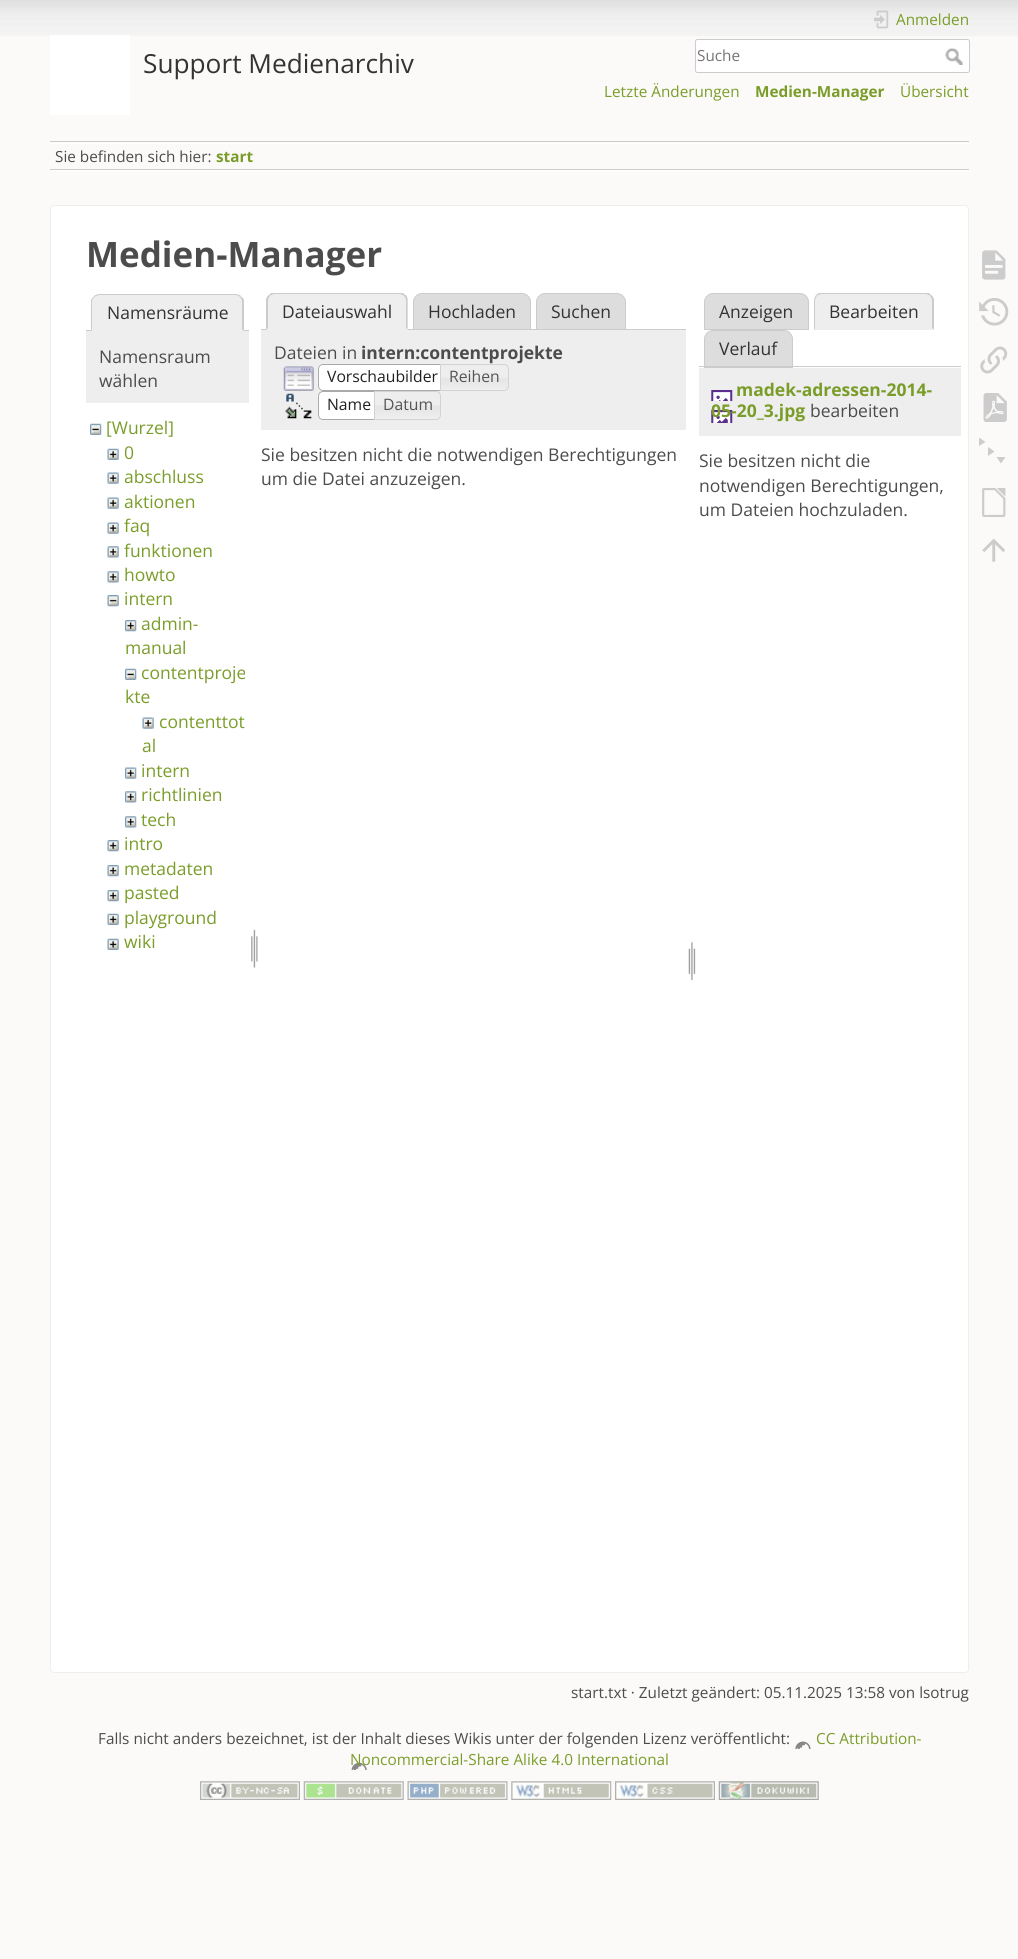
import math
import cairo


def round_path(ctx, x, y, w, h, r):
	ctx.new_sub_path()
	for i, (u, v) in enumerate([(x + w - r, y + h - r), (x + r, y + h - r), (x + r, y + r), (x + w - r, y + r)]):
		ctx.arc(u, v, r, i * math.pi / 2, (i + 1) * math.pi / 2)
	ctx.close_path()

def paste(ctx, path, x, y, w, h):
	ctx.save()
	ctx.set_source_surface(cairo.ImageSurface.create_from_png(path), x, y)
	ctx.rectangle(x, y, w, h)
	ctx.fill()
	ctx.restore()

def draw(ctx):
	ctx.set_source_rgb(0.984, 0.98, 0.976)
	ctx.paint()
	paste(ctx, 'media/1.png', 0, 0, 1018, 36)
	ctx.set_source_rgb(1, 1, 1)
	ctx.rectangle(50, 35, 80, 80)
	ctx.fill()
	ctx.select_font_face('Open Sans')
	ctx.set_font_size(26.25)
	ctx.set_source_rgb(0.2, 0.2, 0.2)
	ctx.move_to(143, 73)
	ctx.show_text('Support Medienarchiv')
	paste(ctx, 'media/2.png', 874, 10, 15, 19)
	ctx.set_font_size(15.3)
	ctx.set_source_rgb(0.478, 0.616, 0.161)
	ctx.move_to(896, 25)
	ctx.show_text('Anmelden')
	ctx.set_source_rgb(1, 1, 1)
	round_path(ctx, 695.5, 39.5, 274, 33, 2)
	ctx.fill_preserve()
	ctx.set_source_rgb(0.8, 0.8, 0.8)
	ctx.set_line_width(1)
	ctx.stroke()
	ctx.set_source_rgb(0.459, 0.459, 0.459)
	ctx.move_to(697, 61)
	ctx.show_text('Suche')
	paste(ctx, 'media/3.png', 945, 48, 18, 17)
	ctx.set_source_rgb(0.478, 0.616, 0.161)
	ctx.move_to(604, 97)
	ctx.show_text('Letzte Änderungen')
	ctx.select_font_face('Open Sans', cairo.FONT_SLANT_NORMAL, cairo.FONT_WEIGHT_BOLD)
	ctx.move_to(755, 97)
	ctx.show_text('Medien-Manager')
	ctx.select_font_face('Open Sans')
	ctx.move_to(900, 97)
	ctx.show_text('Übersicht')
	ctx.set_source_rgb(0.8, 0.8, 0.8)
	ctx.rectangle(50, 141, 919, 1)
	ctx.fill()
	ctx.set_source_rgb(1, 1, 1)
	ctx.rectangle(50, 170, 919, 1)
	ctx.rectangle(50, 143, 919, 1)
	ctx.fill()
	ctx.set_source_rgb(0.8, 0.8, 0.8)
	ctx.rectangle(50, 169, 919, 1)
	ctx.fill()
	ctx.set_source_rgb(0.298, 0.298, 0.298)
	ctx.move_to(55, 162)
	ctx.show_text('Sie befinden sich hier:')
	ctx.select_font_face('Open Sans', cairo.FONT_SLANT_NORMAL, cairo.FONT_WEIGHT_BOLD)
	ctx.set_source_rgb(0.478, 0.616, 0.161)
	ctx.move_to(216, 162)
	ctx.show_text('start')
	ctx.set_source_rgb(1, 1, 1)
	round_path(ctx, 50.5, 205.5, 918, 1467, 3.5)
	ctx.fill_preserve()
	ctx.set_source_rgb(0.933, 0.933, 0.933)
	ctx.stroke()
	ctx.set_font_size(35)
	ctx.set_source_rgb(0.298, 0.298, 0.298)
	ctx.move_to(86, 267)
	ctx.show_text('Medien-Manager')
	ctx.set_source_rgb(0.8, 0.8, 0.8)
	ctx.rectangle(86, 330, 163, 1)
	ctx.fill()
	ctx.set_source_rgb(0.933, 0.933, 0.933)
	ctx.new_path()
	ctx.move_to(100, 294)
	ctx.line_to(235, 294)
	ctx.curve_to(240, 294, 244, 298, 244, 303)
	ctx.line_to(244, 331)
	ctx.line_to(91, 331)
	ctx.line_to(91, 303)
	ctx.curve_to(91, 298, 95, 294, 100, 294)
	ctx.close_path()
	ctx.fill()
	ctx.set_source_rgb(0.8, 0.8, 0.8)
	ctx.new_path()
	ctx.move_to(100, 294)
	ctx.curve_to(98, 294, 95, 295, 94, 296)
	ctx.line_to(94, 297)
	ctx.curve_to(96, 296, 98, 295, 100, 295)
	ctx.line_to(235, 295)
	ctx.curve_to(237, 295, 239, 296, 240, 297)
	ctx.line_to(241, 296)
	ctx.curve_to(240, 295, 237, 294, 235, 294)
	ctx.close_path()
	ctx.fill()
	ctx.new_path()
	ctx.move_to(241, 296.5)
	ctx.curve_to(242.5, 297.5, 243.5, 299, 244, 300)
	ctx.line_to(244, 331)
	ctx.line_to(242, 329.5)
	ctx.line_to(242, 302)
	ctx.curve_to(242, 300, 241.5, 298.5, 240, 297.5)
	ctx.close_path()
	ctx.fill()
	ctx.set_source_rgb(0.933, 0.933, 0.933)
	ctx.new_path()
	ctx.move_to(244, 331)
	ctx.line_to(92, 331)
	ctx.line_to(92, 330)
	ctx.line_to(242, 330)
	ctx.close_path()
	ctx.fill()
	ctx.set_source_rgb(0.8, 0.8, 0.8)
	ctx.new_path()
	ctx.move_to(91, 300)
	ctx.curve_to(91.5, 299, 92.5, 297.5, 94, 296.5)
	ctx.line_to(94.5, 297)
	ctx.curve_to(93, 298, 92, 300, 92, 302)
	ctx.line_to(92, 330)
	ctx.line_to(92.5, 330)
	ctx.line_to(91, 331)
	ctx.close_path()
	ctx.fill()
	ctx.select_font_face('Open Sans')
	ctx.set_font_size(17.5)
	ctx.set_source_rgb(0.2, 0.2, 0.2)
	ctx.move_to(107, 319)
	ctx.show_text('Namensräume')
	ctx.set_source_rgb(0.933, 0.933, 0.933)
	ctx.rectangle(86, 331, 163, 72)
	ctx.fill()
	ctx.set_source_rgb(0.298, 0.298, 0.298)
	ctx.move_to(99, 363)
	ctx.show_text('Namensraum')
	ctx.move_to(99, 387)
	ctx.show_text('wählen')
	paste(ctx, 'media/4.png', 90, 423, 12, 12)
	ctx.set_source_rgb(0.478, 0.616, 0.161)
	ctx.move_to(106, 434)
	ctx.show_text('[Wurzel]')
	paste(ctx, 'media/5.png', 107, 448, 12, 12)
	ctx.move_to(124, 459)
	ctx.show_text('0')
	paste(ctx, 'media/6.png', 107, 472, 12, 12)
	ctx.move_to(124, 483)
	ctx.show_text('abschluss')
	paste(ctx, 'media/6.png', 107, 497, 12, 12)
	ctx.move_to(124, 508)
	ctx.show_text('aktionen')
	paste(ctx, 'media/6.png', 107, 522, 12, 12)
	ctx.move_to(124, 532)
	ctx.show_text('faq')
	paste(ctx, 'media/7.png', 107, 546, 12, 12)
	ctx.move_to(124, 557)
	ctx.show_text('funktionen')
	paste(ctx, 'media/7.png', 107, 571, 12, 12)
	ctx.move_to(124, 581)
	ctx.show_text('howto')
	paste(ctx, 'media/8.png', 107, 595, 12, 12)
	ctx.move_to(124, 605)
	ctx.show_text('intern')
	paste(ctx, 'media/9.png', 125, 620, 12, 12)
	ctx.move_to(141, 630)
	ctx.show_text('admin-')
	ctx.move_to(125, 654)
	ctx.show_text('manual')
	paste(ctx, 'media/4.png', 125, 668, 12, 12)
	ctx.move_to(141, 679)
	ctx.show_text('contentproje')
	ctx.move_to(125, 703)
	ctx.show_text('kte')
	paste(ctx, 'media/6.png', 142, 717, 12, 12)
	ctx.move_to(159, 728)
	ctx.show_text('contenttot')
	ctx.move_to(142, 752)
	ctx.show_text('al')
	paste(ctx, 'media/10.png', 125, 767, 12, 12)
	ctx.move_to(141, 777)
	ctx.show_text('intern')
	paste(ctx, 'media/11.png', 125, 791, 12, 12)
	ctx.move_to(141, 801)
	ctx.show_text('richtlinien')
	paste(ctx, 'media/11.png', 125, 816, 12, 12)
	ctx.move_to(141, 826)
	ctx.show_text('tech')
	paste(ctx, 'media/12.png', 107, 840, 12, 12)
	ctx.move_to(124, 850)
	ctx.show_text('intro')
	paste(ctx, 'media/12.png', 107, 865, 12, 12)
	ctx.move_to(124, 875)
	ctx.show_text('metadaten')
	paste(ctx, 'media/12.png', 107, 890, 12, 12)
	ctx.move_to(124, 899)
	ctx.show_text('pasted')
	paste(ctx, 'media/5.png', 107, 913, 12, 12)
	ctx.move_to(124, 924)
	ctx.show_text('playground')
	paste(ctx, 'media/5.png', 107, 938, 12, 12)
	ctx.move_to(124, 948)
	ctx.show_text('wiki')
	paste(ctx, 'media/13.png', 251, 929, 7, 39)
	ctx.set_source_rgb(0.867, 0.867, 0.867)
	ctx.new_path()
	ctx.move_to(422, 293.5)
	ctx.line_to(522, 293.5)
	ctx.curve_to(526.5, 293.5, 530.5, 297.5, 530.5, 302)
	ctx.line_to(530.5, 329.5)
	ctx.line_to(413.5, 329.5)
	ctx.line_to(413.5, 302)
	ctx.curve_to(413.5, 297.5, 417.5, 293.5, 422, 293.5)
	ctx.close_path()
	ctx.fill_preserve()
	ctx.set_source_rgb(0.8, 0.8, 0.8)
	ctx.stroke()
	ctx.set_source_rgb(0.867, 0.867, 0.867)
	ctx.new_path()
	ctx.move_to(545, 293.5)
	ctx.line_to(617, 293.5)
	ctx.curve_to(621.5, 293.5, 625.5, 297.5, 625.5, 302)
	ctx.line_to(625.5, 329.5)
	ctx.line_to(536.5, 329.5)
	ctx.line_to(536.5, 302)
	ctx.curve_to(536.5, 297.5, 540.5, 293.5, 545, 293.5)
	ctx.close_path()
	ctx.fill_preserve()
	ctx.set_source_rgb(0.8, 0.8, 0.8)
	ctx.stroke()
	ctx.rectangle(261, 329, 425, 1)
	ctx.fill()
	ctx.set_source_rgb(0.933, 0.933, 0.933)
	ctx.new_path()
	ctx.move_to(275, 293)
	ctx.line_to(399, 293)
	ctx.curve_to(404, 293, 408, 297, 408, 302)
	ctx.line_to(408, 330)
	ctx.line_to(266, 330)
	ctx.line_to(266, 302)
	ctx.curve_to(266, 297, 270, 293, 275, 293)
	ctx.close_path()
	ctx.fill()
	ctx.save()
	ctx.rectangle(261, 293, 425, 37)
	ctx.clip()
	ctx.set_source_rgb(0.8, 0.8, 0.8)
	ctx.new_path()
	ctx.move_to(275, 294)
	ctx.curve_to(273, 294, 271, 295, 270, 296)
	ctx.line_to(269, 295)
	ctx.line_to(272, 292)
	ctx.line_to(402, 292)
	ctx.line_to(405, 295)
	ctx.line_to(404, 296)
	ctx.curve_to(403, 295, 401, 294, 399, 294)
	ctx.close_path()
	ctx.fill()
	ctx.restore()
	ctx.set_source_rgb(0.8, 0.8, 0.8)
	ctx.new_path()
	ctx.move_to(407.5, 298)
	ctx.line_to(407.5, 330)
	ctx.line_to(406, 328.5)
	ctx.line_to(406, 301)
	ctx.curve_to(406, 299, 405, 297, 404, 296)
	ctx.line_to(405.5, 294.5)
	ctx.curve_to(406.5, 295.5, 407, 296.5, 407.5, 298)
	ctx.close_path()
	ctx.fill()
	ctx.set_source_rgb(0.933, 0.933, 0.933)
	ctx.new_path()
	ctx.move_to(408, 330)
	ctx.line_to(406, 328)
	ctx.line_to(406, 329)
	ctx.line_to(268, 329)
	ctx.line_to(268, 328)
	ctx.line_to(266, 330)
	ctx.close_path()
	ctx.fill()
	ctx.set_source_rgb(0.8, 0.8, 0.8)
	ctx.new_path()
	ctx.move_to(266, 330)
	ctx.line_to(266, 299)
	ctx.curve_to(266.5, 297.5, 267.5, 296, 268.5, 295)
	ctx.line_to(270, 296)
	ctx.curve_to(268.5, 297.5, 268, 299, 268, 301)
	ctx.line_to(268, 328)
	ctx.close_path()
	ctx.fill()
	ctx.set_source_rgb(0.2, 0.2, 0.2)
	for x, y, s in [
		(282, 318, 'Dateiauswahl'),
		(428, 318, 'Hochladen'),
		(551, 318, 'Suchen'),
	]:
		ctx.move_to(x, y)
		ctx.show_text(s)
	ctx.set_source_rgb(0.933, 0.933, 0.933)
	ctx.rectangle(261, 330, 425, 100)
	ctx.fill()
	ctx.set_source_rgb(0.298, 0.298, 0.298)
	ctx.move_to(274, 359)
	ctx.show_text('Dateien in')
	ctx.select_font_face('Open Sans', cairo.FONT_SLANT_NORMAL, cairo.FONT_WEIGHT_BOLD)
	ctx.move_to(361, 359)
	ctx.show_text('intern:contentprojekte')
	paste(ctx, 'media/14.png', 283, 366, 31, 25)
	ctx.set_source_rgb(1, 1, 1)
	ctx.new_path()
	ctx.move_to(323, 364)
	ctx.line_to(446, 364)
	ctx.line_to(446, 391)
	ctx.line_to(323, 391)
	ctx.curve_to(320, 391, 318, 389, 318, 386)
	ctx.line_to(318, 369)
	ctx.curve_to(318, 366, 320, 364, 323, 364)
	ctx.close_path()
	ctx.fill()
	paste(ctx, 'media/15.png', 317, 364, 5, 27)
	ctx.new_path()
	ctx.move_to(323, 364.5)
	ctx.line_to(445.5, 364.5)
	ctx.line_to(445.5, 390.5)
	ctx.line_to(323, 390.5)
	ctx.curve_to(320.5, 390.5, 318.5, 388.5, 318.5, 386)
	ctx.line_to(318.5, 369)
	ctx.curve_to(318.5, 366.5, 320.5, 364.5, 323, 364.5)
	ctx.close_path()
	ctx.set_source_rgb(0.667, 0.667, 0.667)
	ctx.stroke()
	ctx.select_font_face('Open Sans')
	ctx.set_font_size(15.75)
	ctx.set_source_rgb(0.129, 0.129, 0.129)
	ctx.move_to(327, 382)
	ctx.show_text('Vorschaubilder')
	paste(ctx, 'media/16.png', 441, 364, 68, 27)
	ctx.new_path()
	ctx.move_to(440.5, 364.5)
	ctx.line_to(504, 364.5)
	ctx.curve_to(506.5, 364.5, 508.5, 366.5, 508.5, 369)
	ctx.line_to(508.5, 386)
	ctx.curve_to(508.5, 388.5, 506.5, 390.5, 504, 390.5)
	ctx.line_to(440.5, 390.5)
	ctx.close_path()
	ctx.set_source_rgb(0.827, 0.827, 0.827)
	ctx.stroke()
	ctx.set_source_rgb(0.333, 0.333, 0.333)
	ctx.move_to(449, 382)
	ctx.show_text('Reihen')
	paste(ctx, 'media/17.png', 285, 393, 27, 26)
	ctx.set_source_rgb(1, 1, 1)
	ctx.new_path()
	ctx.move_to(323, 391)
	ctx.line_to(380, 391)
	ctx.line_to(380, 420)
	ctx.line_to(323, 420)
	ctx.curve_to(320, 420, 318, 418, 318, 415)
	ctx.line_to(318, 396)
	ctx.curve_to(318, 393, 320, 391, 323, 391)
	ctx.close_path()
	ctx.fill()
	paste(ctx, 'media/18.png', 317, 392, 4, 28)
	ctx.new_path()
	ctx.move_to(323, 391.5)
	ctx.line_to(379.5, 391.5)
	ctx.line_to(379.5, 419.5)
	ctx.line_to(323, 419.5)
	ctx.curve_to(320.5, 419.5, 318.5, 417.5, 318.5, 415)
	ctx.line_to(318.5, 396)
	ctx.curve_to(318.5, 393.5, 320.5, 391.5, 323, 391.5)
	ctx.close_path()
	ctx.set_source_rgb(0.667, 0.667, 0.667)
	ctx.stroke()
	ctx.set_source_rgb(0.129, 0.129, 0.129)
	ctx.move_to(327, 410)
	ctx.show_text('Name')
	paste(ctx, 'media/19.png', 373, 391, 68, 29)
	ctx.new_path()
	ctx.move_to(374.5, 391.5)
	ctx.line_to(436, 391.5)
	ctx.curve_to(438.5, 391.5, 440.5, 393.5, 440.5, 396)
	ctx.line_to(440.5, 415)
	ctx.curve_to(440.5, 417.5, 438.5, 419.5, 436, 419.5)
	ctx.line_to(374.5, 419.5)
	ctx.close_path()
	ctx.set_source_rgb(0.827, 0.827, 0.827)
	ctx.stroke()
	ctx.set_source_rgb(0.333, 0.333, 0.333)
	ctx.move_to(383, 410)
	ctx.show_text('Datum')
	ctx.set_font_size(17.5)
	ctx.set_source_rgb(0.298, 0.298, 0.298)
	ctx.move_to(261, 461)
	ctx.show_text('Sie besitzen nicht die notwendigen Berechtigungen')
	ctx.move_to(261, 485)
	ctx.show_text('um die Datei anzuzeigen.')
	paste(ctx, 'media/20.png', 688, 941, 8, 40)
	ctx.set_source_rgb(0.867, 0.867, 0.867)
	ctx.new_path()
	ctx.move_to(713, 293.5)
	ctx.line_to(800, 293.5)
	ctx.curve_to(804.5, 293.5, 808.5, 297.5, 808.5, 302)
	ctx.line_to(808.5, 329.5)
	ctx.line_to(704.5, 329.5)
	ctx.line_to(704.5, 302)
	ctx.curve_to(704.5, 297.5, 708.5, 293.5, 713, 293.5)
	ctx.close_path()
	ctx.fill_preserve()
	ctx.set_source_rgb(0.8, 0.8, 0.8)
	ctx.stroke()
	ctx.set_source_rgb(0.2, 0.2, 0.2)
	ctx.move_to(719, 318)
	ctx.show_text('Anzeigen')
	ctx.set_source_rgb(0.933, 0.933, 0.933)
	ctx.new_path()
	ctx.move_to(823, 293)
	ctx.line_to(925, 293)
	ctx.curve_to(930, 293, 934, 297, 934, 302)
	ctx.line_to(934, 330)
	ctx.line_to(814, 330)
	ctx.line_to(814, 302)
	ctx.curve_to(814, 297, 818, 293, 823, 293)
	ctx.close_path()
	ctx.fill()
	ctx.save()
	ctx.rectangle(699, 293, 262, 75)
	ctx.clip()
	ctx.set_source_rgb(0.8, 0.8, 0.8)
	ctx.new_path()
	ctx.move_to(822, 294)
	ctx.curve_to(820, 294, 818, 295, 817, 296)
	ctx.line_to(816, 295)
	ctx.line_to(820, 292)
	ctx.line_to(928, 292)
	ctx.line_to(931, 295)
	ctx.line_to(930, 296)
	ctx.curve_to(929, 295, 927, 294, 925, 294)
	ctx.close_path()
	ctx.fill()
	ctx.restore()
	ctx.set_source_rgb(0.8, 0.8, 0.8)
	ctx.new_path()
	ctx.move_to(934, 299)
	ctx.line_to(934, 330)
	ctx.line_to(932, 328)
	ctx.line_to(932, 301)
	ctx.curve_to(932, 299, 931.5, 297.5, 930, 296)
	ctx.line_to(931.5, 295)
	ctx.curve_to(932.5, 296, 933.5, 297.5, 934, 299)
	ctx.close_path()
	ctx.fill()
	ctx.set_source_rgb(0.933, 0.933, 0.933)
	ctx.new_path()
	ctx.move_to(934, 330)
	ctx.line_to(932, 328)
	ctx.line_to(932, 329)
	ctx.line_to(815, 329)
	ctx.line_to(814, 330)
	ctx.close_path()
	ctx.fill()
	ctx.set_source_rgb(0.8, 0.8, 0.8)
	ctx.new_path()
	ctx.move_to(814, 330)
	ctx.line_to(814, 301)
	ctx.curve_to(814, 298.5, 815, 296.5, 816, 295)
	ctx.line_to(817, 296)
	ctx.curve_to(816, 297, 815, 299, 815, 301)
	ctx.line_to(815, 329)
	ctx.close_path()
	ctx.fill()
	ctx.set_source_rgb(0.2, 0.2, 0.2)
	ctx.move_to(829, 318)
	ctx.show_text('Bearbeiten')
	ctx.set_source_rgb(0.867, 0.867, 0.867)
	ctx.new_path()
	ctx.move_to(713, 330.5)
	ctx.line_to(784, 330.5)
	ctx.curve_to(788.5, 330.5, 792.5, 334.5, 792.5, 339)
	ctx.line_to(792.5, 367.5)
	ctx.line_to(704.5, 367.5)
	ctx.line_to(704.5, 339)
	ctx.curve_to(704.5, 334.5, 708.5, 330.5, 713, 330.5)
	ctx.close_path()
	ctx.fill_preserve()
	ctx.set_source_rgb(0.8, 0.8, 0.8)
	ctx.stroke()
	ctx.set_source_rgb(0.2, 0.2, 0.2)
	ctx.move_to(719, 355)
	ctx.show_text('Verlauf')
	ctx.set_source_rgb(0.8, 0.8, 0.8)
	ctx.rectangle(699, 366, 262, 1)
	ctx.fill()
	ctx.set_source_rgb(0.933, 0.933, 0.933)
	ctx.rectangle(699, 368, 262, 68)
	ctx.fill()
	paste(ctx, 'media/21.png', 711, 390, 22, 33)
	ctx.select_font_face('Open Sans', cairo.FONT_SLANT_NORMAL, cairo.FONT_WEIGHT_BOLD)
	ctx.set_source_rgb(0.478, 0.616, 0.161)
	ctx.move_to(736, 396)
	ctx.show_text('madek-adressen-2014-')
	ctx.move_to(711, 417)
	ctx.show_text('05-20_3.jpg')
	ctx.select_font_face('Open Sans')
	ctx.set_source_rgb(0.298, 0.298, 0.298)
	for x, y, s in [
		(810, 417, 'bearbeiten'),
		(699, 467, 'Sie besitzen nicht die'),
		(699, 492, 'notwendigen Berechtigungen,'),
		(699, 516, 'um Dateien hochzuladen.'),
	]:
		ctx.move_to(x, y)
		ctx.show_text(s)
	ctx.set_font_size(15.3)
	ctx.move_to(571, 1698)
	ctx.show_text('start.txt · Zuletzt geändert: 05.11.2025 13:58 von lsotrug')
	paste(ctx, 'media/22.png', 982, 250, 24, 30)
	paste(ctx, 'media/23.png', 979, 298, 30, 28)
	paste(ctx, 'media/24.png', 980, 346, 28, 28)
	paste(ctx, 'media/25.png', 983, 393, 24, 29)
	ctx.set_source_rgb(0.8, 0.8, 0.8)
	ctx.new_path()
	ctx.move_to(979, 437.5)
	ctx.line_to(985.5, 442)
	ctx.line_to(979, 446)
	ctx.close_path()
	ctx.move_to(988, 447)
	ctx.line_to(994.5, 451.5)
	ctx.line_to(988, 456)
	ctx.close_path()
	ctx.move_to(996.5, 457)
	ctx.line_to(1005.5, 457)
	ctx.line_to(1001, 463.5)
	ctx.close_path()
	ctx.fill()
	paste(ctx, 'media/26.png', 982, 488, 24, 29)
	paste(ctx, 'media/27.png', 982, 538, 23, 24)
	ctx.set_source_rgb(0.298, 0.298, 0.298)
	ctx.move_to(98, 1744)
	ctx.show_text('Falls nicht anders bezeichnet, ist der Inhalt dieses Wikis unter der folgenden Lizenz veröffentlicht:')
	ctx.set_source_rgb(0.478, 0.616, 0.161)
	ctx.move_to(816, 1744)
	ctx.show_text('CC Attribution-')
	paste(ctx, 'media/28.png', 351, 1741, 460, 29)
	ctx.move_to(350, 1765)
	ctx.show_text('Noncommercial-Share Alike 4.0 International')
	paste(ctx, 'media/29.png', 200, 1781, 100, 19)
	paste(ctx, 'media/30.png', 303, 1781, 101, 19)
	paste(ctx, 'media/31.png', 407, 1781, 101, 19)
	paste(ctx, 'media/32.png', 511, 1781, 101, 19)
	paste(ctx, 'media/33.png', 615, 1781, 100, 19)
	paste(ctx, 'media/34.png', 718, 1781, 101, 19)


surface = cairo.ImageSurface(cairo.FORMAT_RGB24, 1018, 1959)
ctx = cairo.Context(surface)
options = cairo.FontOptions()
options.set_hint_metrics(cairo.HINT_METRICS_OFF)
options.set_hint_style(cairo.HINT_STYLE_NONE)
ctx.set_font_options(options)
ctx.set_miter_limit(4)
draw(ctx)
surface.write_to_png('image.png')
